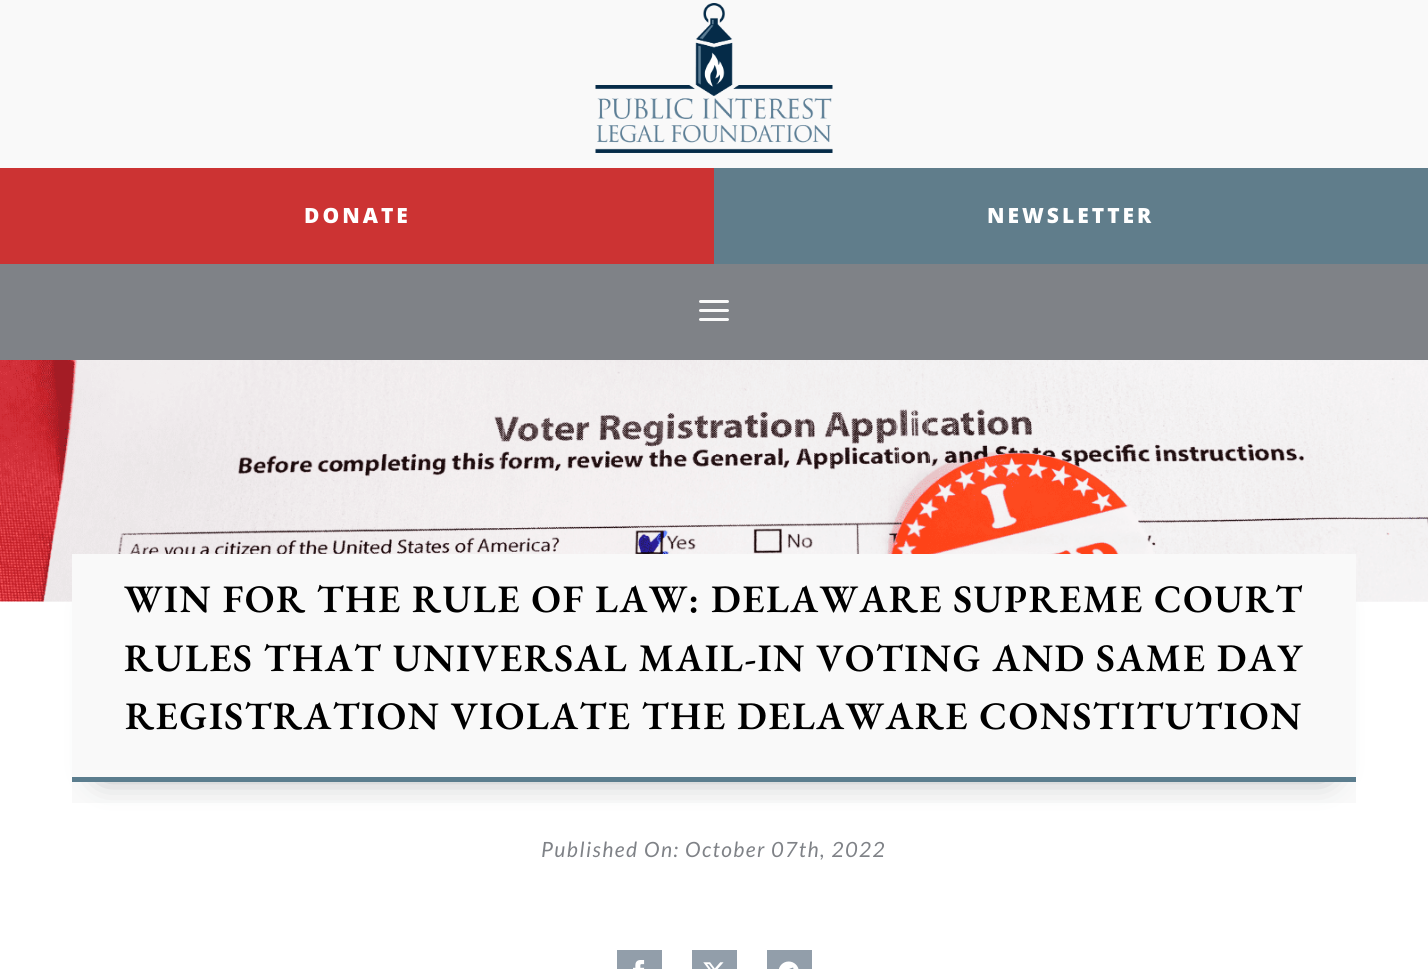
import math
import cairo


def write_spaced(ctx, x, y, s, letter, word):
	ctx.move_to(x, y)
	for ch in s:
		ctx.show_text(ch)
		ctx.rel_move_to(letter + word * (ch == ' '), 0)

def round_path(ctx, x, y, w, h, r):
	ctx.new_sub_path()
	for i, (u, v) in enumerate([(x + w - r, y + h - r), (x + r, y + h - r), (x + r, y + r), (x + w - r, y + r)]):
		ctx.arc(u, v, r, i * math.pi / 2, (i + 1) * math.pi / 2)
	ctx.close_path()

def blur_box(ctx, x, y, w, h, r, blur, alpha):
	ctx.push_group_with_content(cairo.CONTENT_ALPHA)
	ctx.set_operator(cairo.OPERATOR_SOURCE)
	for i in range(15, -16, -2):
		e = blur * i / 6
		if min(w, h) + 2 * e > 0:
			ctx.set_source_rgba(0, 0, 0, alpha * math.erfc((i - 1) / 8.5) / 2)
			round_path(ctx, x - e, y - e, w + 2 * e, h + 2 * e, max(0, min(r + e + blur * .6, min(w, h) / 2 + e)))
			ctx.fill()
	ctx.mask(ctx.pop_group())

def paste(ctx, path, x, y, w, h):
	ctx.save()
	ctx.set_source_surface(cairo.ImageSurface.create_from_png(path), x, y)
	ctx.rectangle(x, y, w, h)
	ctx.fill()
	ctx.restore()

def draw(ctx):
	ctx.set_source_rgb(0.976, 0.976, 0.976)
	ctx.paint()
	paste(ctx, 'media/1.png', 595, 3, 238, 150)
	ctx.set_source_rgb(0.8, 0.2, 0.2)
	ctx.rectangle(0, 168, 714, 96)
	ctx.fill()
	ctx.select_font_face('Open Sans ExtraBold')
	ctx.set_font_size(21)
	ctx.set_source_rgb(1, 1, 1)
	write_spaced(ctx, 304, 223, 'DONATE', 3, 0)
	ctx.set_source_rgb(0.376, 0.49, 0.545)
	ctx.rectangle(714, 168, 714, 96)
	ctx.fill()
	ctx.set_source_rgb(1, 1, 1)
	write_spaced(ctx, 987, 223, 'NEWSLETTER', 3, 0)
	ctx.set_source_rgb(0.498, 0.51, 0.529)
	ctx.rectangle(0, 264, 1428, 96)
	ctx.fill()
	paste(ctx, 'media/2.png', 699, 300, 30, 21)
	ctx.set_source_rgb(1, 1, 1)
	ctx.rectangle(0, 602, 1428, 367)
	ctx.fill()
	paste(ctx, 'media/3.png', 0, 360, 1428, 242)
	ctx.set_source_rgb(0.976, 0.976, 0.976)
	ctx.rectangle(72, 554, 1284, 249)
	ctx.fill()
	ctx.save()
	ctx.set_fill_rule(cairo.FILL_RULE_EVEN_ODD)
	ctx.new_path()
	ctx.move_to(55, 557)
	ctx.line_to(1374, 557)
	ctx.line_to(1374, 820)
	ctx.line_to(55, 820)
	ctx.close_path()
	ctx.move_to(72, 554)
	ctx.line_to(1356, 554)
	ctx.line_to(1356, 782)
	ctx.line_to(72, 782)
	ctx.close_path()
	ctx.clip()
	ctx.set_source_rgb(0.498, 0.51, 0.529)
	blur_box(ctx, 104, 606, 1221, 165, 0, 16, 1)
	ctx.restore()
	ctx.set_source_rgb(0.357, 0.49, 0.557)
	ctx.rectangle(72, 777, 1284, 5)
	ctx.fill()
	ctx.select_font_face('EB Garamond SemiBold')
	ctx.set_font_size(39)
	ctx.set_source_rgb(0, 0, 0)
	for x, y, s in [
		(124, 612, 'WIN FOR THE RULE OF LAW: DELAWARE SUPREME COURT'),
		(124, 671, 'RULES THAT UNIVERSAL MAIL-IN VOTING AND SAME DAY'),
		(125, 729, 'REGISTRATION VIOLATE THE DELAWARE CONSTITUTION'),
	]:
		write_spaced(ctx, x, y, s, 1.5, 0)
	ctx.select_font_face('Lato', cairo.FONT_SLANT_ITALIC)
	ctx.set_font_size(21)
	ctx.set_source_rgb(0.498, 0.51, 0.529)
	write_spaced(ctx, 541, 857, 'Published On: October 07th, 2022', 1.5, 0)
	ctx.set_source_rgb(0.573, 0.62, 0.667)
	ctx.rectangle(617, 950, 45, 19)
	ctx.fill()
	paste(ctx, 'media/4.png', 633, 960, 12, 9)
	ctx.rectangle(692, 950, 45, 19)
	ctx.fill()
	paste(ctx, 'media/5.png', 703, 962, 21, 7)
	ctx.rectangle(767, 950, 45, 19)
	ctx.fill()
	paste(ctx, 'media/6.png', 779, 961, 20, 8)


surface = cairo.ImageSurface(cairo.FORMAT_RGB24, 1428, 969)
ctx = cairo.Context(surface)
options = cairo.FontOptions()
options.set_hint_metrics(cairo.HINT_METRICS_OFF)
options.set_hint_style(cairo.HINT_STYLE_NONE)
ctx.set_font_options(options)
ctx.set_miter_limit(4)
draw(ctx)
surface.write_to_png('image.png')
